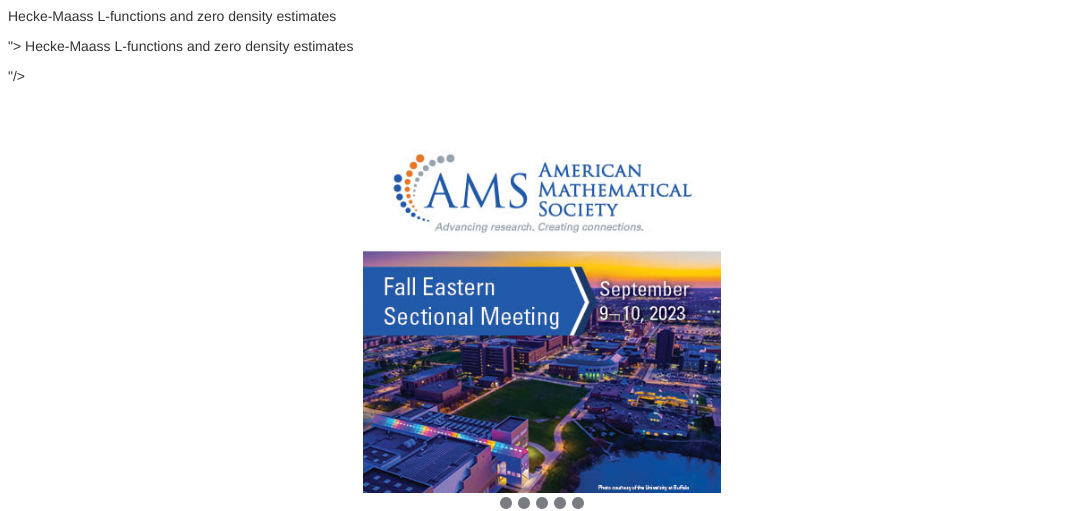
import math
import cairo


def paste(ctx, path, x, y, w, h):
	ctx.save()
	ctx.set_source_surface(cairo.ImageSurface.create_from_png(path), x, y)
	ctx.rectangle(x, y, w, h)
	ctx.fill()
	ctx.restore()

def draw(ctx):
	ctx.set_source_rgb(1, 1, 1)
	ctx.paint()
	ctx.select_font_face('Liberation Sans')
	ctx.set_font_size(14)
	ctx.set_source_rgb(0.2, 0.2, 0.2)
	for x, y, s in [
		(8, 21, 'Hecke-Maass L-functions and zero density estimates'),
		(8, 51, '"> Hecke-Maass L-functions and zero density estimates'),
		(8, 81, '"/>'),
	]:
		ctx.move_to(x, y)
		ctx.show_text(s)
	paste(ctx, 'media/1.png', 363, 149, 358, 344)
	paste(ctx, 'media/2.png', 500, 497, 12, 12)
	paste(ctx, 'media/2.png', 518, 497, 12, 12)
	paste(ctx, 'media/2.png', 536, 497, 12, 12)
	paste(ctx, 'media/2.png', 554, 497, 12, 12)
	paste(ctx, 'media/2.png', 572, 497, 12, 12)


surface = cairo.ImageSurface(cairo.FORMAT_RGB24, 1084, 511)
ctx = cairo.Context(surface)
options = cairo.FontOptions()
options.set_hint_metrics(cairo.HINT_METRICS_OFF)
options.set_hint_style(cairo.HINT_STYLE_NONE)
ctx.set_font_options(options)
ctx.set_miter_limit(4)
draw(ctx)
surface.write_to_png('image.png')
